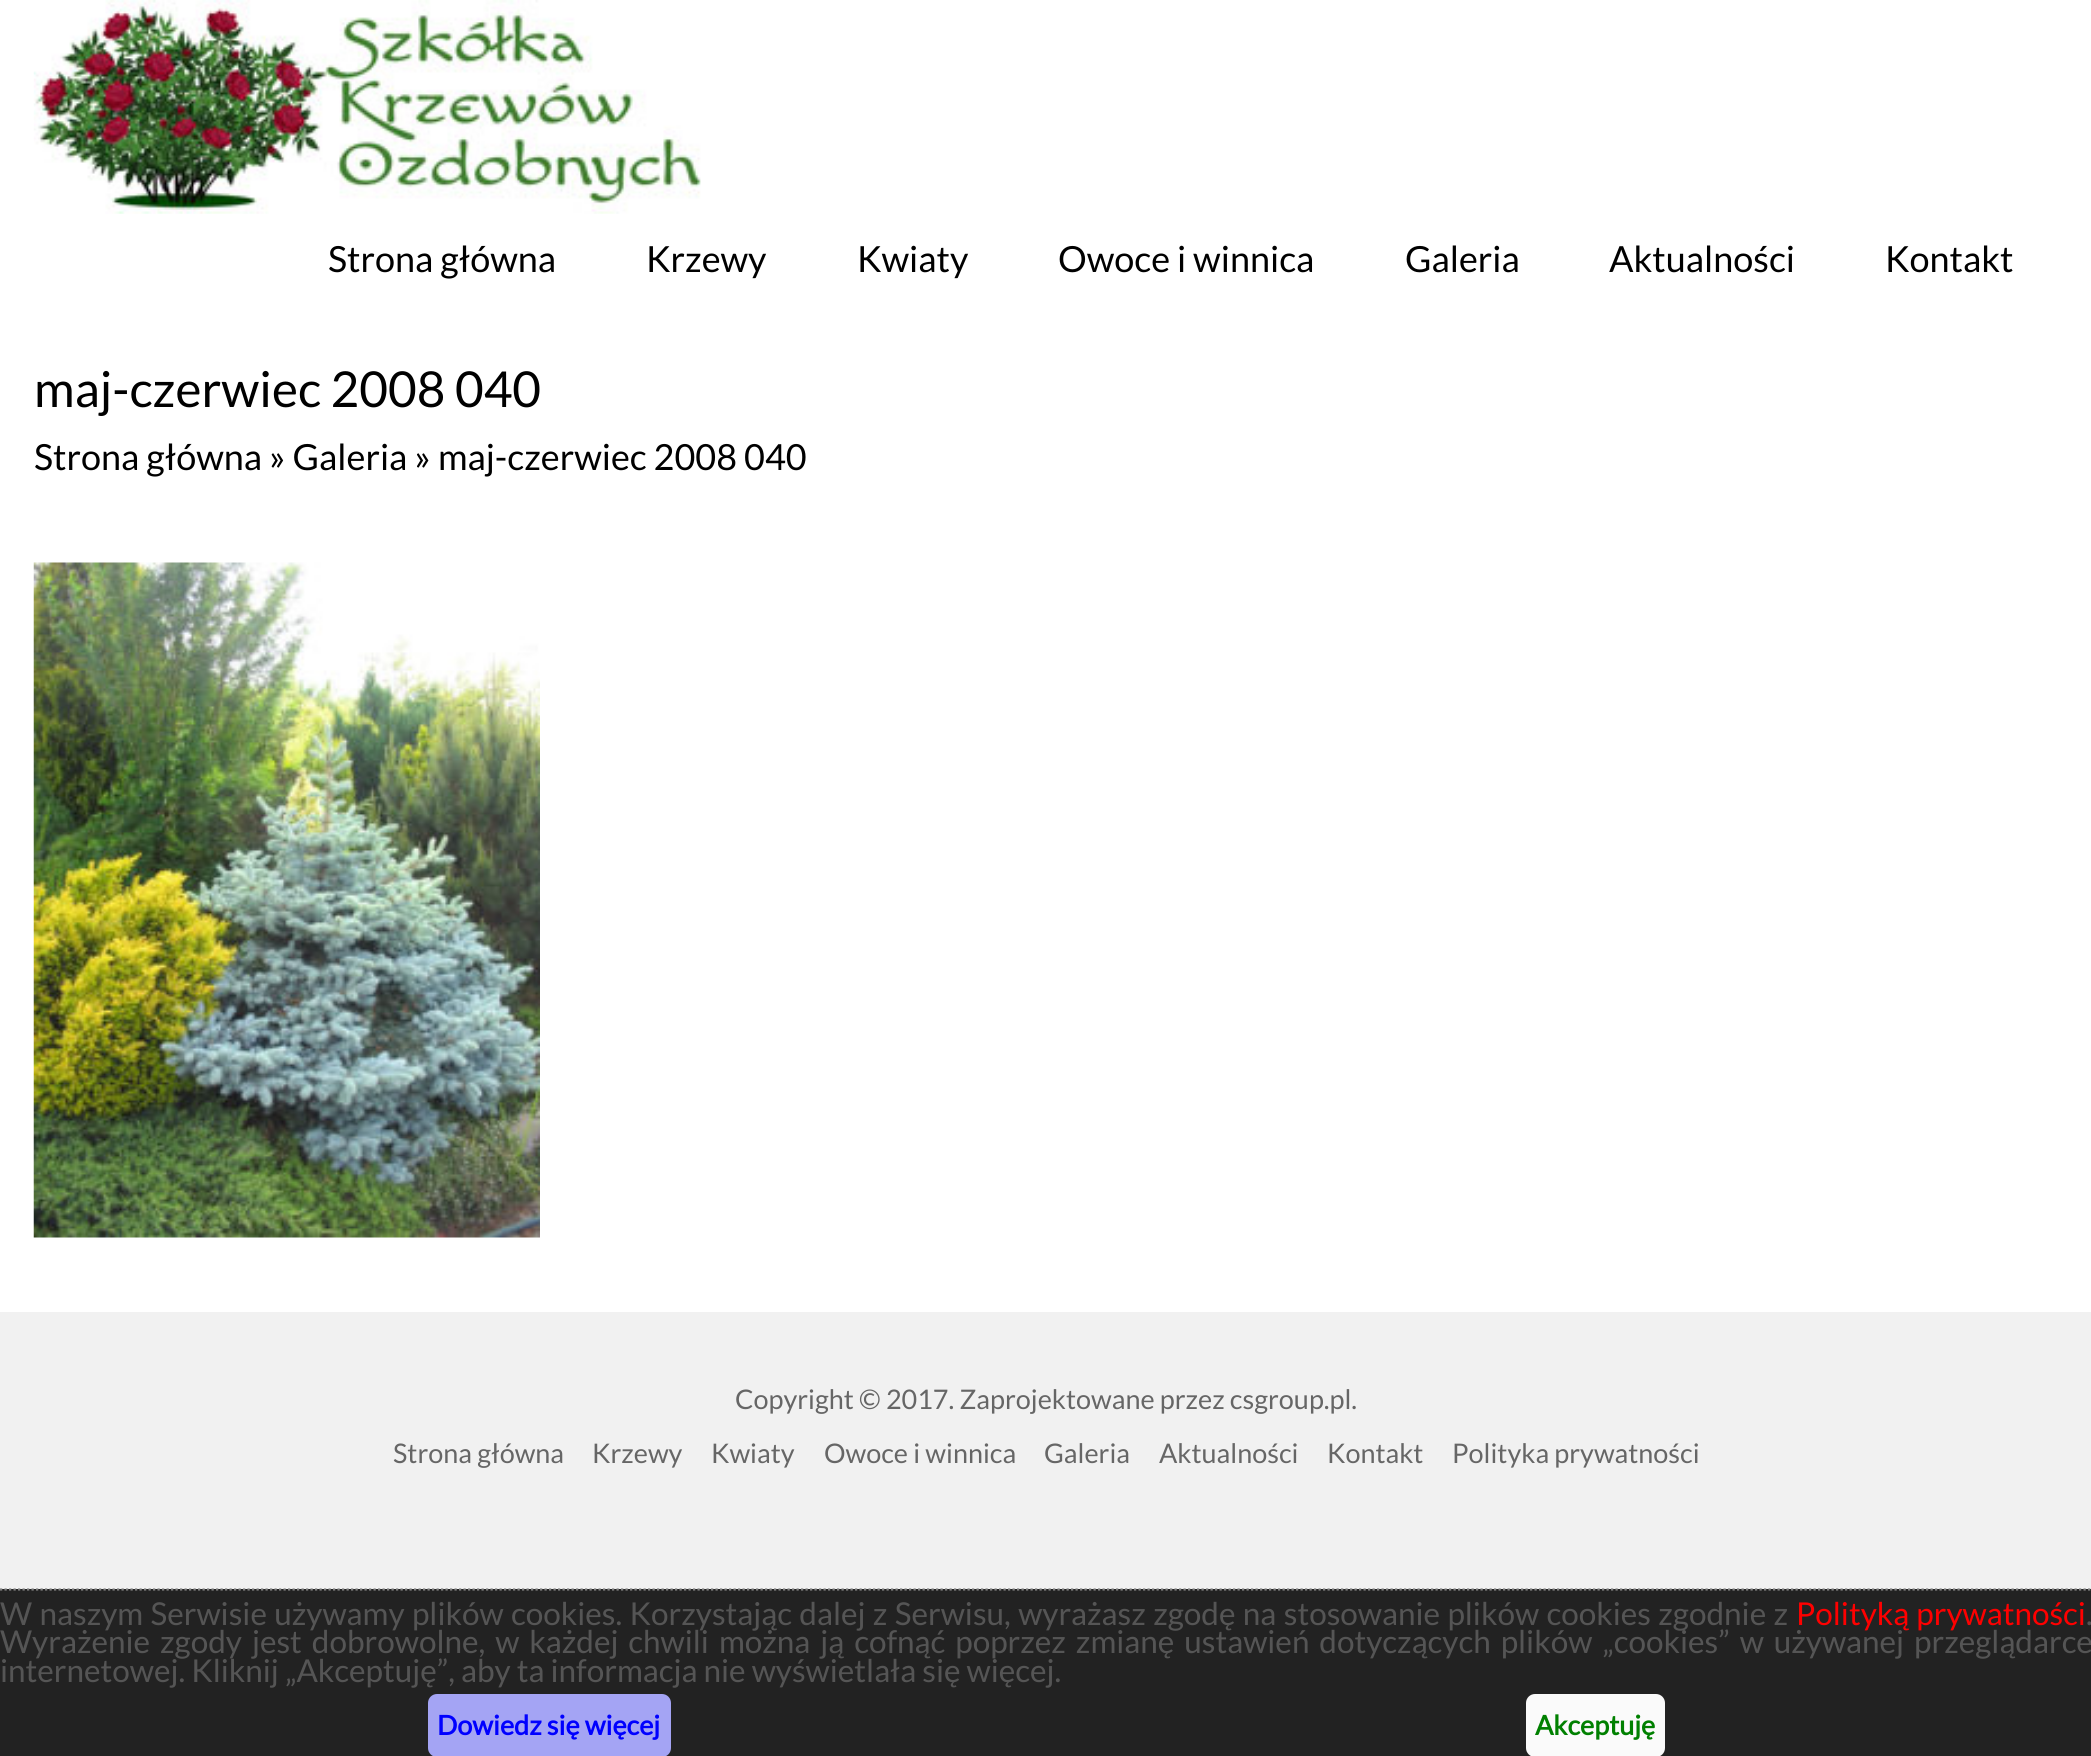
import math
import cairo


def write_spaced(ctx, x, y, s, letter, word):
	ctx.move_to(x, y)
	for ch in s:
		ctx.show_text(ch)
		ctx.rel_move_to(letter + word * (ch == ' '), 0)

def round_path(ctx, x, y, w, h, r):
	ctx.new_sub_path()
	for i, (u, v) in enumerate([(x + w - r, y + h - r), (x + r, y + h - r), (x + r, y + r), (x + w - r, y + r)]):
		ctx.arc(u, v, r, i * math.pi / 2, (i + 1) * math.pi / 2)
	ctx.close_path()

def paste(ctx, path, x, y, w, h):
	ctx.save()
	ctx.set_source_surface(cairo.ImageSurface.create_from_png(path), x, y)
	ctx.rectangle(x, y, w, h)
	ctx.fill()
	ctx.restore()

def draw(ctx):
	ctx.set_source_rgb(0.945, 0.945, 0.945)
	ctx.paint()
	ctx.set_source_rgb(1, 1, 1)
	ctx.rectangle(0, 0, 2091, 1312)
	ctx.fill()
	paste(ctx, 'media/1.png', 33, 0, 668, 214)
	ctx.select_font_face('Lato')
	ctx.set_font_size(36)
	ctx.set_source_rgb(0, 0, 0)
	for x, y, s in [
		(328, 272, 'Strona główna'),
		(646, 272, 'Krzewy'),
		(857, 272, 'Kwiaty'),
		(1058, 272, 'Owoce i winnica'),
		(1405, 272, 'Galeria'),
		(1609, 272, 'Aktualności'),
		(1885, 272, 'Kontakt'),
	]:
		ctx.move_to(x, y)
		ctx.show_text(s)
	ctx.set_font_size(49.5)
	ctx.move_to(34, 407)
	ctx.show_text('maj-czerwiec 2008 040')
	ctx.set_font_size(36)
	ctx.move_to(34, 470)
	ctx.show_text('Strona główna » Galeria » maj-czerwiec 2008 040')
	paste(ctx, 'media/2.png', 33, 562, 507, 676)
	ctx.set_font_size(27)
	ctx.set_source_rgb(0.4, 0.4, 0.4)
	for x, y, s in [
		(735, 1409, 'Copyright © 2017. Zaprojektowane przez csgroup.pl.'),
		(393, 1463, 'Strona główna'),
		(592, 1463, 'Krzewy'),
		(711, 1463, 'Kwiaty'),
		(824, 1463, 'Owoce i winnica'),
		(1044, 1463, 'Galeria'),
		(1159, 1463, 'Aktualności'),
		(1327, 1463, 'Kontakt'),
		(1452, 1463, 'Polityka prywatności'),
	]:
		ctx.move_to(x, y)
		ctx.show_text(s)
	ctx.set_source_rgb(0.133, 0.133, 0.133)
	ctx.rectangle(0, 1589, 2091, 167)
	ctx.fill()
	ctx.new_path()
	ctx.move_to(0, 1589.5)
	ctx.line_to(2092.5, 1589.5)
	ctx.set_source_rgb(0.498, 0.498, 0.498)
	ctx.set_line_width(2.2)
	ctx.set_dash([2.25, 2.25])
	ctx.stroke()
	ctx.set_font_size(31.5)
	ctx.set_source_rgb(0.333, 0.333, 0.333)
	write_spaced(ctx, 0, 1625, 'W naszym Serwisie używamy plików cookies. Korzystając dalej z Serwisu, wyrażasz zgodę na stosowanie plików cookies zgodnie z', 0, 1.3)
	ctx.set_source_rgb(1, 0, 0)
	write_spaced(ctx, 1796, 1625, 'Polityką prywatności', 0, 1)
	ctx.set_source_rgb(0.333, 0.333, 0.333)
	ctx.move_to(2086, 1625)
	ctx.show_text('.')
	write_spaced(ctx, 0, 1653, 'Wyrażenie zgody jest dobrowolne, w każdej chwili można ją cofnąć poprzez zmianę ustawień dotyczących plików „cookies” w używanej przeglądarce', 0, 3.9)
	ctx.move_to(0, 1682)
	ctx.show_text('internetowej. Kliknij „Akceptuję”, aby ta informacja nie wyświetlała się więcej.')
	ctx.set_source_rgb(0.643, 0.643, 0.957)
	round_path(ctx, 428, 1694, 243, 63, 9)
	ctx.fill()
	ctx.select_font_face('Lato', cairo.FONT_SLANT_NORMAL, cairo.FONT_WEIGHT_BOLD)
	ctx.set_font_size(27)
	ctx.set_source_rgb(0, 0, 1)
	ctx.move_to(437, 1735)
	ctx.show_text('Dowiedz się więcej')
	ctx.set_source_rgb(0.98, 0.98, 0.98)
	round_path(ctx, 1526, 1694, 139, 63, 9)
	ctx.fill()
	ctx.set_source_rgb(0, 0.502, 0)
	ctx.move_to(1535, 1735)
	ctx.show_text('Akceptuję')


surface = cairo.ImageSurface(cairo.FORMAT_RGB24, 2091, 1756)
ctx = cairo.Context(surface)
options = cairo.FontOptions()
options.set_hint_metrics(cairo.HINT_METRICS_OFF)
options.set_hint_style(cairo.HINT_STYLE_NONE)
ctx.set_font_options(options)
ctx.set_miter_limit(4)
draw(ctx)
surface.write_to_png('image.png')
